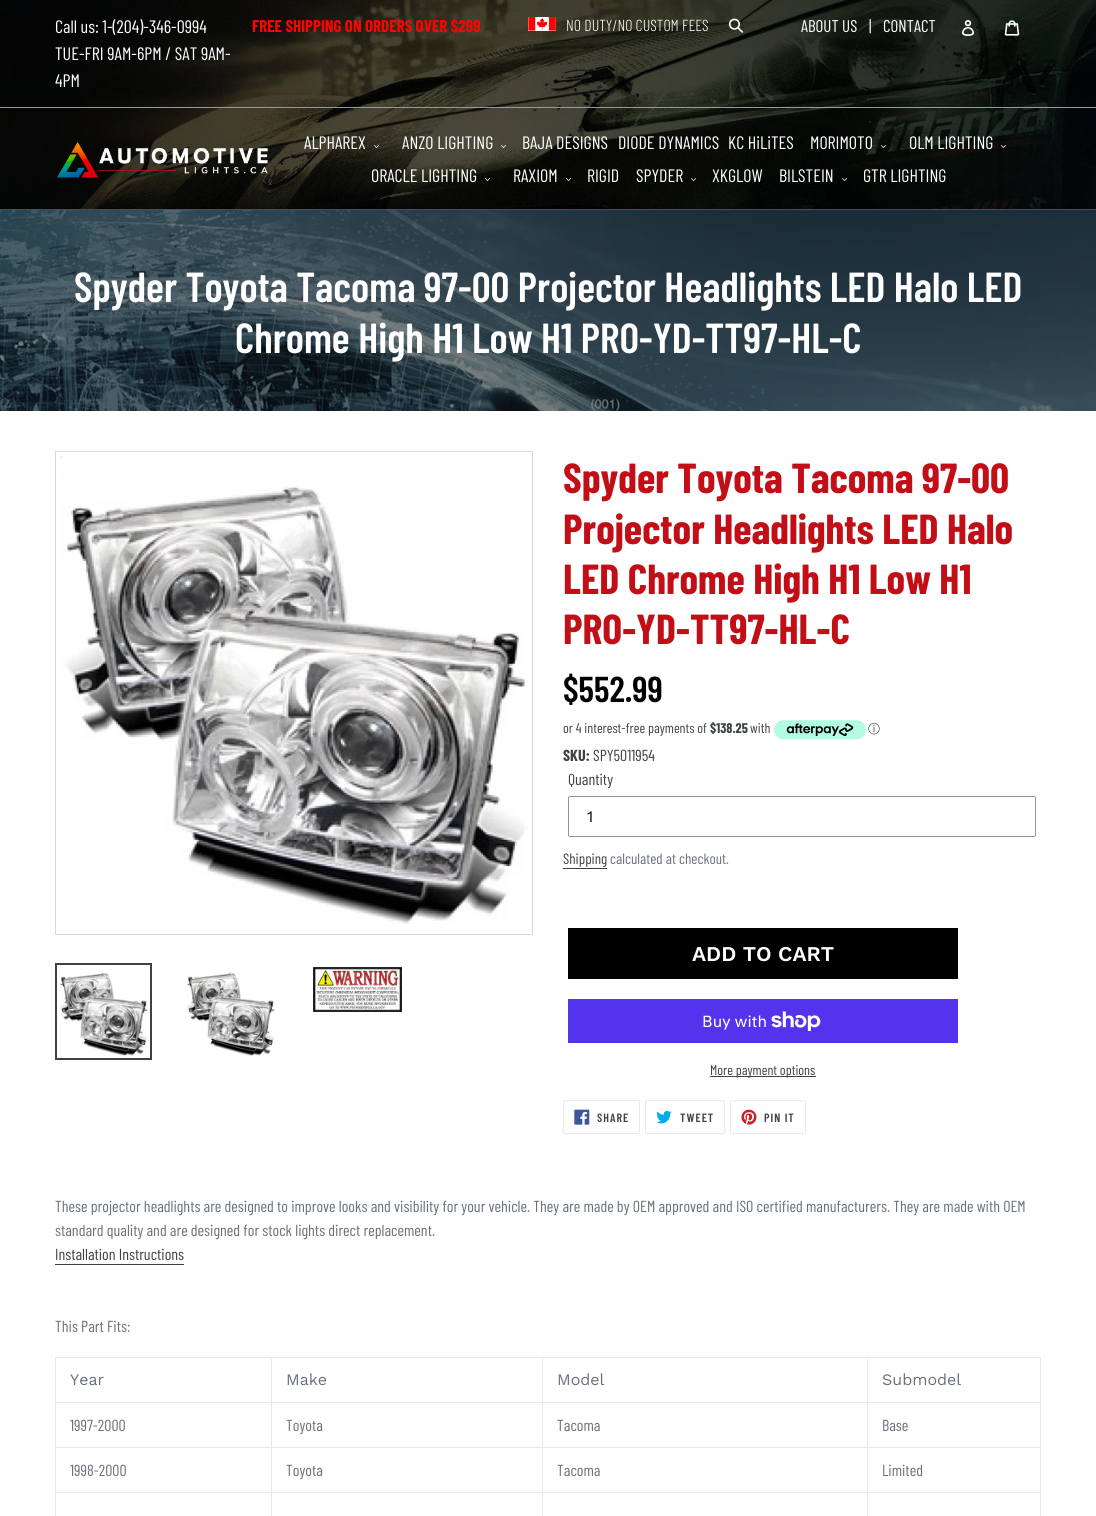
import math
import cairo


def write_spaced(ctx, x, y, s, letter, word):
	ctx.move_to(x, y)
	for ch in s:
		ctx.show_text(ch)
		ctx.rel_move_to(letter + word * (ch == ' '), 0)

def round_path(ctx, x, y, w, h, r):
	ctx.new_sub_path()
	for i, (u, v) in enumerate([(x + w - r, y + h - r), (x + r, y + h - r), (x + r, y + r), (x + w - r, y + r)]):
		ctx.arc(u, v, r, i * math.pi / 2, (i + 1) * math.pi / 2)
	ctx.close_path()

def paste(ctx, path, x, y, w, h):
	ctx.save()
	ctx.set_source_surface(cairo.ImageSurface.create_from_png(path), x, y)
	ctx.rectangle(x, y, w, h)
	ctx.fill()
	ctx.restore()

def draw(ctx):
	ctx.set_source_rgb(1, 1, 1)
	ctx.paint()
	paste(ctx, 'media/1.png', 0, 0, 1096, 209)
	ctx.set_source_rgb(1, 0, 0)
	ctx.rectangle(0, 209, 1096, 1)
	ctx.fill()
	ctx.set_source_rgb(0.6, 0.6, 0.6)
	ctx.rectangle(0, 107, 1096, 1)
	ctx.fill()
	ctx.select_font_face('Barlow Condensed')
	ctx.set_font_size(18)
	ctx.set_source_rgb(1, 1, 1)
	for x, y, s in [
		(55, 33, 'Call us: 1-(204)-346-0994'),
		(55, 60, 'TUE-FRI 9AM-6PM / SAT 9AM-'),
		(55, 87, '4PM'),
	]:
		ctx.move_to(x, y)
		ctx.show_text(s)
	ctx.select_font_face('Barlow Condensed', cairo.FONT_SLANT_NORMAL, cairo.FONT_WEIGHT_BOLD)
	ctx.set_font_size(17)
	ctx.set_source_rgb(0.988, 0.016, 0.004)
	ctx.move_to(252, 32)
	ctx.show_text('FREE SHIPPING ON ORDERS OVER $299')
	paste(ctx, 'media/2.png', 528, 17, 28, 14)
	ctx.select_font_face('Barlow Condensed Light')
	ctx.set_font_size(16)
	ctx.set_source_rgb(1, 1, 1)
	ctx.move_to(566, 31)
	ctx.show_text('NO DUTY/NO CUSTOM FEES')
	paste(ctx, 'media/3.png', 728, 18, 15, 15)
	ctx.select_font_face('Barlow Condensed')
	ctx.set_font_size(17)
	for x, y, s in [
		(801, 32, 'ABOUT US'),
		(869, 32, '|'),
		(883, 32, 'CONTACT'),
	]:
		ctx.move_to(x, y)
		ctx.show_text(s)
	paste(ctx, 'media/4.png', 962, 20, 12, 16)
	paste(ctx, 'media/5.png', 1004, 20, 16, 16)
	paste(ctx, 'media/6.png', 57, 142, 211, 36)
	ctx.set_font_size(18)
	ctx.move_to(304, 149)
	ctx.show_text('ALPHAREX')
	paste(ctx, 'media/7.png', 374, 145, 5, 3)
	ctx.move_to(402, 149)
	ctx.show_text('ANZO LIGHTING')
	paste(ctx, 'media/8.png', 501, 145, 5, 3)
	for x, y, s in [
		(522, 149, 'BAJA DESIGNS'),
		(618, 149, 'DIODE DYNAMICS'),
		(728, 149, 'KC HiLiTES'),
		(810, 149, 'MORIMOTO'),
	]:
		ctx.move_to(x, y)
		ctx.show_text(s)
	paste(ctx, 'media/9.png', 881, 145, 5, 3)
	ctx.move_to(909, 149)
	ctx.show_text('OLM LIGHTING')
	paste(ctx, 'media/10.png', 1001, 145, 5, 3)
	ctx.move_to(371, 182)
	ctx.show_text('ORACLE LIGHTING')
	paste(ctx, 'media/11.png', 485, 178, 5, 3)
	ctx.move_to(513, 182)
	ctx.show_text('RAXIOM')
	paste(ctx, 'media/12.png', 566, 178, 5, 3)
	ctx.move_to(587, 182)
	ctx.show_text('RIGID')
	ctx.move_to(636, 182)
	ctx.show_text('SPYDER')
	paste(ctx, 'media/13.png', 691, 178, 5, 3)
	ctx.move_to(712, 182)
	ctx.show_text('XKGLOW')
	ctx.move_to(779, 182)
	ctx.show_text('BILSTEIN')
	paste(ctx, 'media/14.png', 842, 178, 5, 3)
	ctx.move_to(863, 182)
	ctx.show_text('GTR LIGHTING')
	paste(ctx, 'media/15.png', 0, 210, 1096, 201)
	ctx.select_font_face('Barlow Condensed SemiBold')
	ctx.set_font_size(42)
	ctx.move_to(74, 302)
	ctx.show_text('Spyder Toyota Tacoma 97-00 Projector Headlights LED Halo LED')
	ctx.move_to(235, 353)
	ctx.show_text('Chrome High H1 Low H1 PRO-YD-TT97-HL-C')
	ctx.rectangle(55.5, 451.5, 477, 483)
	ctx.set_source_rgb(0.851, 0.851, 0.851)
	ctx.set_line_width(1)
	ctx.stroke()
	paste(ctx, 'media/16.png', 60, 456, 468, 468)
	ctx.rectangle(56, 964, 95, 95)
	ctx.set_source_rgb(0.239, 0.259, 0.275)
	ctx.set_line_width(2)
	ctx.stroke()
	paste(ctx, 'media/17.png', 59, 967, 89, 89)
	paste(ctx, 'media/18.png', 187, 972, 88, 84)
	paste(ctx, 'media/19.png', 313, 967, 89, 45)
	ctx.select_font_face('Barlow Condensed', cairo.FONT_SLANT_NORMAL, cairo.FONT_WEIGHT_BOLD)
	ctx.set_source_rgb(0.761, 0.055, 0.086)
	for x, y, s in [
		(563, 493, 'Spyder Toyota Tacoma 97-00'),
		(563, 544, 'Projector Headlights LED Halo'),
		(563, 594, 'LED Chrome High H1 Low H1'),
		(563, 644, 'PRO-YD-TT97-HL-C'),
	]:
		ctx.move_to(x, y)
		ctx.show_text(s)
	ctx.select_font_face('Barlow Condensed SemiBold')
	ctx.set_font_size(36)
	ctx.set_source_rgb(0, 0, 0)
	ctx.move_to(563, 702)
	ctx.show_text('$552.99')
	ctx.select_font_face('Barlow Condensed')
	ctx.set_font_size(14)
	ctx.set_source_rgb(0.239, 0.259, 0.275)
	ctx.move_to(563, 733)
	ctx.show_text('or 4 interest-free payments of')
	ctx.select_font_face('Barlow Condensed', cairo.FONT_SLANT_NORMAL, cairo.FONT_WEIGHT_BOLD)
	ctx.move_to(710, 733)
	ctx.show_text('$138.25')
	ctx.select_font_face('Barlow Condensed')
	ctx.move_to(750, 733)
	ctx.show_text('with')
	paste(ctx, 'media/20.png', 774, 720, 92, 20)
	ctx.select_font_face('WenQuanYi Zen Hei Medium')
	ctx.set_font_size(12)
	ctx.move_to(868, 733)
	ctx.show_text('ⓘ')
	ctx.select_font_face('Barlow Condensed', cairo.FONT_SLANT_NORMAL, cairo.FONT_WEIGHT_BOLD)
	ctx.set_font_size(16)
	ctx.move_to(563, 761)
	ctx.show_text('SKU:')
	ctx.select_font_face('Barlow Condensed')
	ctx.move_to(593, 761)
	ctx.show_text('SPY5011954')
	ctx.move_to(568, 785)
	ctx.show_text('Quantity')
	round_path(ctx, 568.5, 796.5, 467, 40, 1.5)
	ctx.set_source_rgb(0.58, 0.58, 0.58)
	ctx.set_line_width(1)
	ctx.stroke()
	ctx.select_font_face('Work Sans')
	ctx.set_source_rgb(0, 0, 0)
	ctx.move_to(587, 822)
	ctx.show_text('1')
	ctx.select_font_face('Barlow Condensed')
	ctx.set_font_size(15)
	ctx.set_source_rgb(0.239, 0.259, 0.275)
	ctx.move_to(563, 864)
	ctx.show_text('Shipping')
	ctx.rectangle(563, 868, 44, 1)
	ctx.fill()
	ctx.set_source_rgb(0.412, 0.447, 0.482)
	ctx.move_to(610, 864)
	ctx.show_text('calculated at checkout.')
	ctx.set_source_rgb(0, 0, 0)
	ctx.rectangle(568, 928, 390, 51)
	ctx.fill()
	ctx.select_font_face('Work Sans SemiBold')
	ctx.set_font_size(21)
	ctx.set_source_rgb(1, 1, 1)
	ctx.move_to(692, 961)
	ctx.show_text('ADD TO CART')
	ctx.set_source_rgb(0.329, 0.2, 0.922)
	ctx.rectangle(568, 999, 390, 44)
	ctx.fill()
	ctx.select_font_face('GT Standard')
	ctx.set_font_size(16)
	ctx.set_source_rgb(1, 1, 1)
	ctx.move_to(702, 1027)
	ctx.show_text('Buy with')
	paste(ctx, 'media/21.png', 771, 1011, 50, 20)
	ctx.set_source_rgb(0.239, 0.259, 0.275)
	ctx.rectangle(710, 1076, 106, 1)
	ctx.fill()
	ctx.select_font_face('Barlow Condensed')
	ctx.set_font_size(14)
	ctx.move_to(710, 1075)
	ctx.show_text('More payment options')
	round_path(ctx, 563.5, 1100.5, 76, 33, 1.5)
	ctx.set_source_rgb(0.91, 0.914, 0.922)
	ctx.stroke()
	paste(ctx, 'media/22.png', 574, 1109, 16, 16)
	ctx.select_font_face('Barlow Condensed SemiBold')
	ctx.set_font_size(12)
	ctx.set_source_rgb(0.239, 0.259, 0.275)
	write_spaced(ctx, 597, 1122, 'SHARE', 1, 0)
	round_path(ctx, 645.5, 1100.5, 79, 33, 1.5)
	ctx.set_source_rgb(0.91, 0.914, 0.922)
	ctx.stroke()
	paste(ctx, 'media/23.png', 656, 1110, 16, 14)
	ctx.set_source_rgb(0.239, 0.259, 0.275)
	write_spaced(ctx, 680, 1122, 'TWEET', 1, 0)
	round_path(ctx, 730.5, 1100.5, 75, 33, 1.5)
	ctx.set_source_rgb(0.91, 0.914, 0.922)
	ctx.stroke()
	paste(ctx, 'media/24.png', 741, 1109, 16, 16)
	ctx.set_source_rgb(0.239, 0.259, 0.275)
	write_spaced(ctx, 764, 1122, 'PIN IT', 1, 0)
	ctx.select_font_face('Barlow Condensed')
	ctx.set_font_size(16)
	ctx.set_source_rgb(0.412, 0.447, 0.482)
	ctx.move_to(55, 1212)
	ctx.show_text('These projector headlights are designed to improve looks and visibility for your vehicle. They are made by OEM approved and ISO certified manufacturers. They are made with OEM')
	ctx.move_to(55, 1236)
	ctx.show_text('standard quality and are designed for stock lights direct replacement.')
	ctx.set_source_rgb(0.239, 0.259, 0.275)
	ctx.move_to(55, 1260)
	ctx.show_text('Installation Instructions')
	ctx.rectangle(55, 1264, 129, 1)
	ctx.fill()
	ctx.set_source_rgb(0.412, 0.447, 0.482)
	ctx.move_to(55, 1332)
	ctx.show_text('This Part Fits:')
	ctx.set_source_rgb(0.91, 0.914, 0.922)
	ctx.rectangle(867, 1357, 174, 1)
	ctx.rectangle(867, 1402, 174, 1)
	ctx.rectangle(867, 1447, 174, 1)
	ctx.rectangle(867, 1492, 174, 1)
	ctx.rectangle(867, 1492, 1, 24)
	ctx.rectangle(542, 1492, 326, 1)
	ctx.rectangle(867, 1447, 1, 46)
	ctx.rectangle(542, 1447, 326, 1)
	ctx.rectangle(867, 1402, 1, 46)
	ctx.rectangle(542, 1402, 326, 1)
	ctx.rectangle(867, 1357, 1, 46)
	ctx.rectangle(542, 1357, 326, 1)
	ctx.rectangle(542, 1492, 1, 24)
	ctx.rectangle(271, 1492, 272, 1)
	ctx.rectangle(542, 1447, 1, 46)
	ctx.rectangle(271, 1447, 272, 1)
	ctx.rectangle(542, 1402, 1, 46)
	ctx.rectangle(271, 1402, 272, 1)
	ctx.rectangle(542, 1357, 1, 46)
	ctx.rectangle(271, 1357, 272, 1)
	ctx.rectangle(271, 1492, 1, 24)
	ctx.rectangle(55, 1492, 217, 1)
	ctx.rectangle(271, 1447, 1, 46)
	ctx.rectangle(55, 1447, 217, 1)
	ctx.rectangle(271, 1402, 1, 46)
	ctx.rectangle(55, 1402, 217, 1)
	ctx.rectangle(271, 1357, 1, 46)
	ctx.rectangle(55, 1357, 217, 1)
	ctx.rectangle(55, 1492, 1, 24)
	ctx.rectangle(55, 1447, 1, 46)
	ctx.rectangle(55, 1402, 1, 46)
	ctx.rectangle(55, 1357, 1, 46)
	ctx.fill()
	ctx.select_font_face('Work Sans')
	ctx.set_source_rgb(0.412, 0.447, 0.482)
	for x, y, s in [
		(70, 1385, 'Year'),
		(286, 1385, 'Make'),
		(557, 1385, 'Model'),
	]:
		ctx.move_to(x, y)
		ctx.show_text(s)
	ctx.set_source_rgb(0.91, 0.914, 0.922)
	ctx.rectangle(1040, 1492, 1, 24)
	ctx.rectangle(1040, 1447, 1, 46)
	ctx.rectangle(1040, 1402, 1, 46)
	ctx.rectangle(1040, 1357, 1, 46)
	ctx.fill()
	ctx.set_source_rgb(0.412, 0.447, 0.482)
	ctx.move_to(882, 1385)
	ctx.show_text('Submodel')
	ctx.select_font_face('Barlow Condensed')
	for x, y, s in [
		(70, 1431, '1997-2000'),
		(286, 1431, 'Toyota'),
		(557, 1431, 'Tacoma'),
		(882, 1431, 'Base'),
		(70, 1476, '1998-2000'),
		(286, 1476, 'Toyota'),
		(557, 1476, 'Tacoma'),
		(882, 1476, 'Limited'),
	]:
		ctx.move_to(x, y)
		ctx.show_text(s)


surface = cairo.ImageSurface(cairo.FORMAT_RGB24, 1096, 1516)
ctx = cairo.Context(surface)
options = cairo.FontOptions()
options.set_hint_metrics(cairo.HINT_METRICS_OFF)
options.set_hint_style(cairo.HINT_STYLE_NONE)
ctx.set_font_options(options)
ctx.set_miter_limit(4)
draw(ctx)
surface.write_to_png('image.png')
